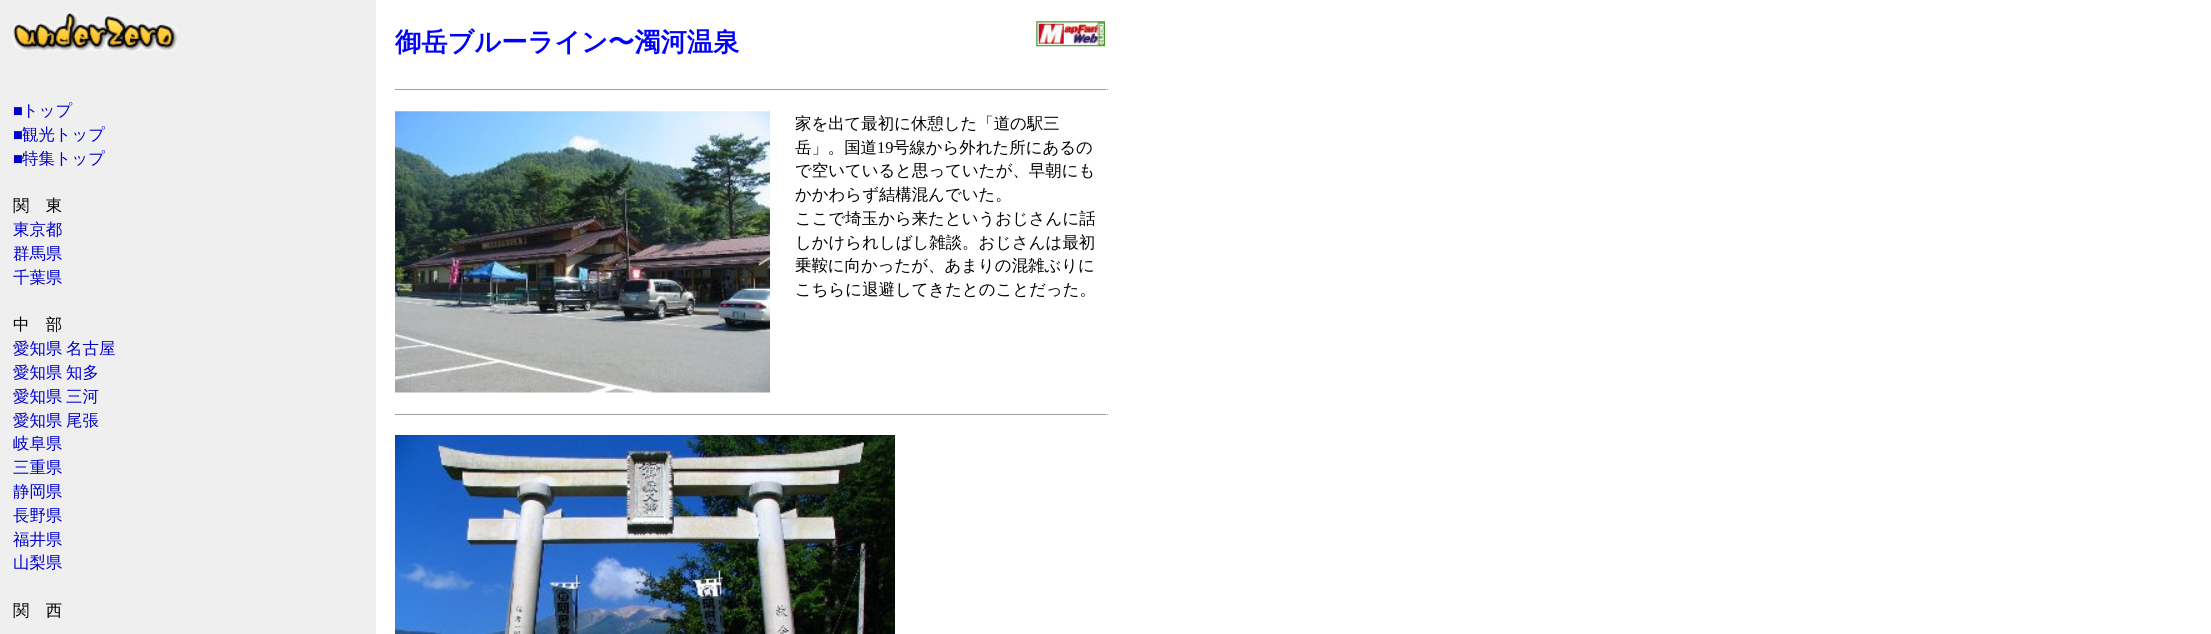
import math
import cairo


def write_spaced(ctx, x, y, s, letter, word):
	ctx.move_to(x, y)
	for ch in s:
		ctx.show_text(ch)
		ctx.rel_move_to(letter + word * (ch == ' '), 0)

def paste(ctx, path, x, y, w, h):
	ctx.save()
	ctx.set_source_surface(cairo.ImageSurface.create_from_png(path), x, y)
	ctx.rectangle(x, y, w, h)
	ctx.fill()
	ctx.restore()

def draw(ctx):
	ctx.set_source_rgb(1, 1, 1)
	ctx.paint()
	ctx.set_source_rgb(0.937, 0.937, 0.937)
	ctx.rectangle(0, 0, 376, 634)
	ctx.fill()
	paste(ctx, 'media/1.png', 12, 12, 166, 39)
	ctx.select_font_face('Liberation Serif')
	ctx.set_font_size(16.4)
	ctx.set_source_rgb(0, 0, 0.8)
	ctx.move_to(13, 116)
	ctx.show_text('■')
	ctx.select_font_face('WenQuanYi Zen Hei Medium')
	ctx.move_to(22, 116)
	ctx.show_text('トップ')
	ctx.select_font_face('Liberation Serif')
	ctx.move_to(13, 140)
	ctx.show_text('■')
	ctx.select_font_face('WenQuanYi Zen Hei Medium')
	ctx.move_to(22, 140)
	ctx.show_text('観光トップ')
	ctx.select_font_face('Liberation Serif')
	ctx.move_to(13, 164)
	ctx.show_text('■')
	ctx.select_font_face('WenQuanYi Zen Hei Medium')
	ctx.move_to(22, 164)
	ctx.show_text('特集トップ')
	ctx.set_source_rgb(0, 0, 0)
	ctx.move_to(13, 211)
	ctx.show_text('関　東')
	ctx.set_source_rgb(0, 0, 0.8)
	for x, y, s in [
		(13, 235, '東京都'),
		(13, 259, '群馬県'),
		(13, 283, '千葉県'),
	]:
		ctx.move_to(x, y)
		ctx.show_text(s)
	ctx.set_source_rgb(0, 0, 0)
	ctx.move_to(13, 330)
	ctx.show_text('中　部')
	ctx.set_source_rgb(0, 0, 0.8)
	for x, y, s in [
		(13, 354, '愛知県 名古屋'),
		(13, 378, '愛知県 知多'),
		(13, 402, '愛知県 三河'),
		(13, 426, '愛知県 尾張'),
	]:
		write_spaced(ctx, x, y, s, 0, -1)
	for x, y, s in [
		(13, 449, '岐阜県'),
		(13, 473, '三重県'),
		(13, 497, '静岡県'),
		(13, 521, '長野県'),
		(13, 545, '福井県'),
		(13, 568, '山梨県'),
	]:
		ctx.move_to(x, y)
		ctx.show_text(s)
	ctx.set_source_rgb(0, 0, 0)
	ctx.move_to(13, 616)
	ctx.show_text('関　西')
	ctx.select_font_face('WenQuanYi Zen Hei', cairo.FONT_SLANT_NORMAL, cairo.FONT_WEIGHT_BOLD)
	ctx.set_font_size(26.25)
	ctx.set_source_rgb(0, 0, 1)
	ctx.move_to(395, 51)
	ctx.show_text('御岳ブルーライン〜濁河温泉')
	paste(ctx, 'media/2.png', 1036, 21, 69, 26)
	ctx.set_source_rgb(0.624, 0.624, 0.624)
	ctx.rectangle(395, 89, 713, 1)
	ctx.fill()
	ctx.set_source_rgb(0.933, 0.933, 0.933)
	ctx.rectangle(1106, 89, 1, 1)
	ctx.fill()
	paste(ctx, 'media/3.png', 395, 111, 375, 282)
	ctx.select_font_face('WenQuanYi Zen Hei Medium')
	ctx.set_font_size(16.4)
	ctx.set_source_rgb(0, 0, 0)
	ctx.move_to(795, 129)
	ctx.show_text('家を出て最初に休憩した「道の駅三')
	ctx.move_to(795, 153)
	ctx.show_text('岳」。国道')
	ctx.select_font_face('Liberation Serif')
	ctx.move_to(877, 153)
	ctx.show_text('19')
	ctx.select_font_face('WenQuanYi Zen Hei Medium')
	for x, y, s in [
		(893, 153, '号線から外れた所にあるの'),
		(795, 176, 'で空いていると思っていたが、早朝にも'),
		(795, 200, 'かかわらず結構混んでいた。'),
		(795, 224, 'ここで埼玉から来たというおじさんに話'),
		(795, 248, 'しかけられしばし雑談。おじさんは最初'),
		(795, 271, '乗鞍に向かったが、あまりの混雑ぶりに'),
		(795, 295, 'こちらに退避してきたとのことだった。'),
	]:
		ctx.move_to(x, y)
		ctx.show_text(s)
	ctx.set_source_rgb(0.624, 0.624, 0.624)
	ctx.rectangle(395, 414, 713, 1)
	ctx.fill()
	ctx.set_source_rgb(0.933, 0.933, 0.933)
	ctx.rectangle(1106, 414, 1, 1)
	ctx.fill()
	paste(ctx, 'media/4.png', 395, 435, 500, 199)


surface = cairo.ImageSurface(cairo.FORMAT_RGB24, 2211, 634)
ctx = cairo.Context(surface)
options = cairo.FontOptions()
options.set_hint_metrics(cairo.HINT_METRICS_OFF)
options.set_hint_style(cairo.HINT_STYLE_NONE)
ctx.set_font_options(options)
ctx.set_miter_limit(4)
draw(ctx)
surface.write_to_png('image.png')
